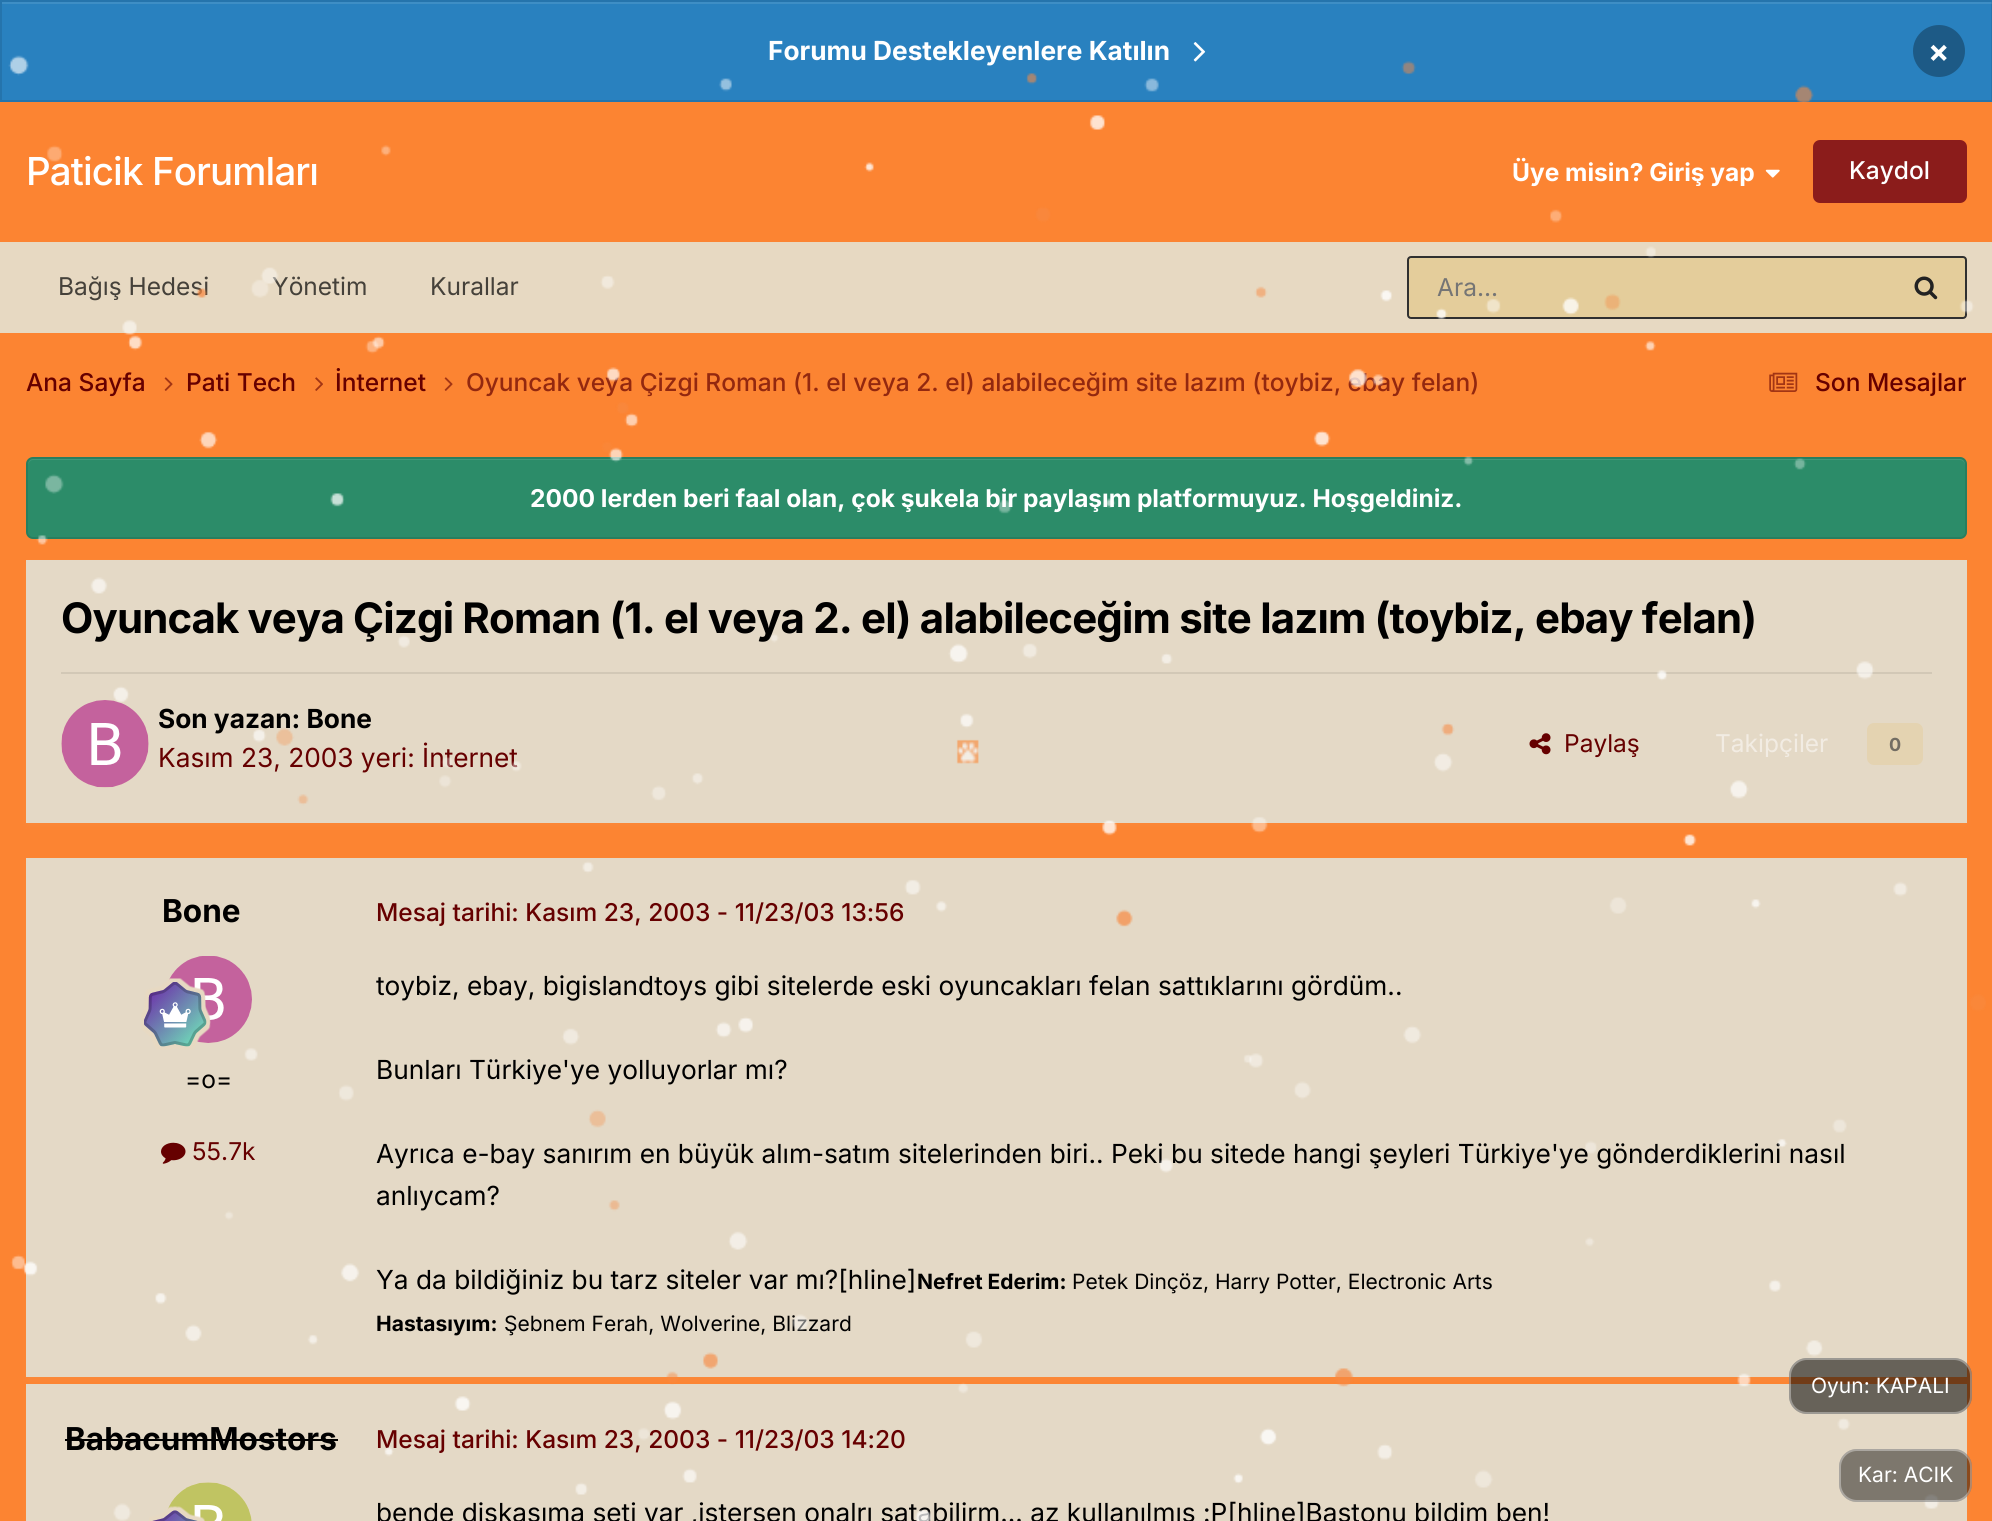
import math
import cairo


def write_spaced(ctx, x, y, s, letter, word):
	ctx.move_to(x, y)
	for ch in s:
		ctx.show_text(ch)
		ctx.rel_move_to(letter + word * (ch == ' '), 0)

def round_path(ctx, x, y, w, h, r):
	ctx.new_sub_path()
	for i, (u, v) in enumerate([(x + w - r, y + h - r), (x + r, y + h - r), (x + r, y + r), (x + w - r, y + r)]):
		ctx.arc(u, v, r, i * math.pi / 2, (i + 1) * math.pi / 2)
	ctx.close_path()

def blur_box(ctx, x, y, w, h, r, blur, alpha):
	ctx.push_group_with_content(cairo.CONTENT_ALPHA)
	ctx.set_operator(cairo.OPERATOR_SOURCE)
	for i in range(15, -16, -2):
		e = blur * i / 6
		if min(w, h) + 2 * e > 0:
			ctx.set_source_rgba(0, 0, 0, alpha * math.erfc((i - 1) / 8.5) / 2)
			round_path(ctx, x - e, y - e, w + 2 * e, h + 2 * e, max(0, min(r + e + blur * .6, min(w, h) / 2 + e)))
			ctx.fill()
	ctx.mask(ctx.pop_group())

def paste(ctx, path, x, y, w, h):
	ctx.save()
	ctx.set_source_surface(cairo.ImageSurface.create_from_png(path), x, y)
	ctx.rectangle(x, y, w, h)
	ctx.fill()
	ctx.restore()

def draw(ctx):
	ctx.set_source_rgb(0.988, 0.518, 0.196)
	ctx.paint()
	ctx.set_source_rgb(0.161, 0.506, 0.749)
	ctx.rectangle(0, 0, 1992, 102)
	ctx.fill()
	ctx.set_source_rgb(0.243, 0.557, 0.773)
	ctx.rectangle(2, 2, 1990, 2)
	ctx.fill()
	ctx.rectangle(1, 1, 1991, 100)
	ctx.set_source_rgba(0, 0, 0, 0.1)
	ctx.stroke()
	ctx.select_font_face('Inter', cairo.FONT_SLANT_NORMAL, cairo.FONT_WEIGHT_BOLD)
	ctx.set_font_size(26.25)
	ctx.set_source_rgb(1, 1, 1)
	ctx.move_to(768, 60)
	ctx.show_text('Forumu Destekleyenlere Katılın')
	paste(ctx, 'media/1.png', 1193, 42, 13, 20)
	ctx.set_source_rgb(0.114, 0.353, 0.525)
	ctx.arc(1939, 51, 26, 0, 2 * math.pi)
	ctx.fill()
	ctx.set_font_size(31.5)
	ctx.set_source_rgb(1, 1, 1)
	ctx.move_to(1928, 62)
	ctx.show_text('×')
	ctx.select_font_face('Inter Medium')
	ctx.set_font_size(38.5)
	write_spaced(ctx, 26, 185, 'Paticik Forumları', -0.9, 0)
	ctx.select_font_face('Inter', cairo.FONT_SLANT_NORMAL, cairo.FONT_WEIGHT_BOLD)
	ctx.set_font_size(24.5)
	ctx.move_to(1512, 181)
	ctx.show_text('Üye misin? Giriş yap')
	paste(ctx, 'media/3.png', 1765, 169, 15, 9)
	ctx.set_source_rgb(0.545, 0.11, 0.106)
	round_path(ctx, 1813, 140, 154, 63, 7)
	ctx.fill()
	ctx.select_font_face('Inter Medium')
	ctx.set_source_rgb(1, 1, 1)
	ctx.move_to(1849, 179)
	ctx.show_text('Kaydol')
	ctx.set_source_rgb(0.906, 0.851, 0.761)
	ctx.rectangle(0, 242, 1992, 91)
	ctx.fill()
	ctx.select_font_face('Inter')
	ctx.set_source_rgb(0.271, 0.255, 0.227)
	for x, y, s in [
		(58, 295, 'Bağış Hedesi'),
		(272, 295, 'Yönetim'),
		(430, 295, 'Kurallar'),
	]:
		ctx.move_to(x, y)
		ctx.show_text(s)
	ctx.set_source_rgb(0.894, 0.804, 0.608)
	round_path(ctx, 1408, 257, 558, 61, 3)
	ctx.fill_preserve()
	ctx.set_source_rgb(0.188, 0.188, 0.188)
	ctx.stroke()
	ctx.set_source_rgb(0.459, 0.459, 0.459)
	ctx.move_to(1437, 296)
	ctx.show_text('Ara...')
	paste(ctx, 'media/4.png', 1914, 276, 24, 24)
	ctx.select_font_face('Inter Medium')
	ctx.set_source_rgb(0.4, 0, 0)
	ctx.move_to(26, 391)
	ctx.show_text('Ana Sayfa')
	paste(ctx, 'media/5.png', 164, 377, 9, 14)
	ctx.move_to(186, 391)
	ctx.show_text('Pati Tech')
	paste(ctx, 'media/6.png', 315, 377, 8, 14)
	ctx.move_to(335, 391)
	ctx.show_text('İnternet')
	paste(ctx, 'media/5.png', 444, 377, 9, 14)
	ctx.set_source_rgb(0.576, 0.157, 0.059)
	ctx.move_to(466, 391)
	ctx.show_text('Oyuncak veya Çizgi Roman (1. el veya 2. el) alabileceğim site lazım (toybiz, ebay felan)')
	paste(ctx, 'media/7.png', 1769, 372, 29, 20)
	ctx.set_source_rgb(0.4, 0, 0)
	ctx.move_to(1815, 391)
	ctx.show_text('Son Mesajlar')
	ctx.set_source_rgb(0.173, 0.549, 0.412)
	round_path(ctx, 26, 457, 1941, 82, 7)
	ctx.fill()
	ctx.set_source_rgb(0.255, 0.596, 0.471)
	ctx.new_path()
	ctx.move_to(33, 460)
	ctx.line_to(1960, 460)
	ctx.curve_to(1963, 460, 1965, 463, 1965, 466)
	ctx.curve_to(1965, 463, 1964, 459, 1960, 459)
	ctx.line_to(33, 459)
	ctx.curve_to(29, 459, 28, 463, 28, 466)
	ctx.curve_to(28, 463, 30, 460, 33, 460)
	ctx.close_path()
	ctx.fill()
	round_path(ctx, 27, 458, 1939, 80, 6)
	ctx.set_source_rgba(0, 0, 0, 0.1)
	ctx.stroke()
	ctx.select_font_face('Inter', cairo.FONT_SLANT_NORMAL, cairo.FONT_WEIGHT_BOLD)
	ctx.set_source_rgb(1, 1, 1)
	ctx.move_to(530, 507)
	ctx.show_text('2000 lerden beri faal olan, çok şukela bir paylaşım platformuyuz. Hoşgeldiniz.')
	ctx.set_source_rgb(0.89, 0.804, 0.612)
	blur_box(ctx, 28, 565, 1937, 259, 0, 3.5, 0.1)
	ctx.set_source_rgb(0.894, 0.851, 0.776)
	ctx.rectangle(26, 560, 1941, 263)
	ctx.fill()
	ctx.set_font_size(42)
	ctx.set_source_rgb(0, 0, 0)
	write_spaced(ctx, 61, 633, 'Oyuncak veya Çizgi Roman (1. el veya 2. el) alabileceğim site lazım (toybiz, ebay felan)', -0.85, 0)
	ctx.set_source_rgb(0.824, 0.784, 0.714)
	ctx.rectangle(61, 672, 1871, 2)
	ctx.fill()
	ctx.set_source_rgb(0.906, 0.851, 0.761)
	ctx.arc(105, 744, 44, 0, 2 * math.pi)
	ctx.fill()
	paste(ctx, 'media/8.png', 61, 700, 88, 88)
	ctx.set_font_size(26.25)
	ctx.set_source_rgb(0, 0, 0)
	ctx.move_to(158, 728)
	ctx.show_text('Son yazan: Bone')
	ctx.select_font_face('Inter')
	ctx.set_source_rgb(0.4, 0, 0)
	ctx.move_to(158, 767)
	ctx.show_text('Kasım 23, 2003 yeri: İnternet')
	paste(ctx, 'media/9.png', 1529, 733, 22, 22)
	ctx.set_font_size(24.5)
	ctx.move_to(1564, 752)
	ctx.show_text('Paylaş')
	ctx.set_source_rgb(0.949, 0.925, 0.89)
	ctx.move_to(1715, 752)
	ctx.show_text('Takipçiler')
	ctx.set_source_rgb(0.894, 0.827, 0.694)
	round_path(ctx, 1867, 723, 56, 42, 7)
	ctx.fill()
	ctx.select_font_face('Inter', cairo.FONT_SLANT_NORMAL, cairo.FONT_WEIGHT_BOLD)
	ctx.set_font_size(18)
	ctx.set_source_rgb(0.447, 0.427, 0.388)
	ctx.move_to(1889, 751)
	ctx.show_text('0')
	ctx.set_source_rgb(0.89, 0.804, 0.612)
	blur_box(ctx, 28, 863, 1937, 516, 0, 3.5, 0.1)
	ctx.set_source_rgb(0.894, 0.851, 0.776)
	ctx.rectangle(26, 858, 1941, 519)
	ctx.fill()
	ctx.set_font_size(31.5)
	ctx.set_source_rgb(0, 0, 0)
	ctx.move_to(162, 922)
	ctx.show_text('Bone')
	ctx.set_source_rgb(0.906, 0.851, 0.761)
	ctx.new_path()
	ctx.arc(208.5, 999.5, 43.5, 0, 2 * math.pi)
	ctx.fill()
	paste(ctx, 'media/10.png', 168, 956, 84, 87)
	paste(ctx, 'media/11.png', 141, 978, 70, 72)
	ctx.select_font_face('Inter')
	ctx.set_font_size(24.5)
	ctx.set_source_rgb(0, 0, 0)
	ctx.move_to(185, 1088)
	ctx.show_text('=o=')
	paste(ctx, 'media/12.png', 161, 1142, 25, 22)
	ctx.set_source_rgb(0.4, 0, 0)
	ctx.move_to(192, 1160)
	ctx.show_text('55.7k')
	ctx.select_font_face('Inter Medium')
	ctx.move_to(376, 921)
	ctx.show_text('Mesaj tarihi: Kasım 23, 2003 - 11/23/03 13:56')
	ctx.select_font_face('Inter')
	ctx.set_font_size(26.25)
	ctx.set_source_rgb(0, 0, 0)
	for x, y, s in [
		(376, 995, 'toybiz, ebay, bigislandtoys gibi sitelerde eski oyuncakları felan sattıklarını gördüm..'),
		(376, 1079, 'Bunları Türkiye\'ye yolluyorlar mı?'),
		(376, 1163, 'Ayrıca e-bay sanırım en büyük alım-satım sitelerinden biri.. Peki bu sitede hangi şeyleri Türkiye\'ye gönderdiklerini nasıl'),
		(376, 1205, 'anlıycam?'),
		(376, 1289, 'Ya da bildiğiniz bu tarz siteler var mı?[hline]'),
	]:
		ctx.move_to(x, y)
		ctx.show_text(s)
	ctx.select_font_face('Inter', cairo.FONT_SLANT_NORMAL, cairo.FONT_WEIGHT_BOLD)
	ctx.set_font_size(21)
	ctx.move_to(917, 1289)
	ctx.show_text('Nefret Ederim:')
	ctx.select_font_face('Inter')
	ctx.move_to(1072, 1289)
	ctx.show_text('Petek Dinçöz, Harry Potter, Electronic Arts')
	ctx.select_font_face('Inter', cairo.FONT_SLANT_NORMAL, cairo.FONT_WEIGHT_BOLD)
	ctx.move_to(376, 1331)
	ctx.show_text('Hastasıyım:')
	ctx.select_font_face('Inter')
	ctx.move_to(504, 1331)
	ctx.show_text('Şebnem Ferah, Wolverine, Blizzard')
	ctx.set_source_rgb(0.89, 0.804, 0.612)
	blur_box(ctx, 28, 1390, 1937, 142, 0, 3.5, 0.1)
	ctx.set_source_rgb(0.894, 0.851, 0.776)
	ctx.rectangle(26, 1384, 1941, 137)
	ctx.fill()
	ctx.select_font_face('Inter', cairo.FONT_SLANT_NORMAL, cairo.FONT_WEIGHT_BOLD)
	ctx.set_font_size(31.5)
	ctx.set_source_rgb(0, 0, 0)
	ctx.move_to(65, 1450)
	ctx.show_text('BabacumMostors')
	ctx.rectangle(65, 1439, 273, 2)
	ctx.fill()
	ctx.set_source_rgb(0.906, 0.851, 0.761)
	round_path(ctx, 165, 1482, 87, 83, 43.5)
	ctx.fill()
	paste(ctx, 'media/13.png', 167, 1482, 85, 39)
	paste(ctx, 'media/14.png', 149, 1506, 56, 15)
	ctx.select_font_face('Inter Medium')
	ctx.set_font_size(24.5)
	ctx.set_source_rgb(0.4, 0, 0)
	ctx.move_to(376, 1448)
	ctx.show_text('Mesaj tarihi: Kasım 23, 2003 - 11/23/03 14:20')
	ctx.select_font_face('Inter')
	ctx.set_font_size(26.25)
	ctx.set_source_rgb(0, 0, 0)
	ctx.move_to(376, 1522)
	ctx.show_text('bende dişkaşıma seti var ,istersen onalrı satabilirm... az kullanılmış :P[hline]Bastonu bildim ben!')
	paste(ctx, 'media/2.png', 8, 55, 1978, 1466)
	ctx.set_source_rgba(0, 0, 0, 0.55)
	round_path(ctx, 1789, 1358, 183, 56, 18)
	ctx.fill()
	round_path(ctx, 1790, 1359, 181, 54, 17)
	ctx.set_source_rgba(1, 1, 1, 0.35)
	ctx.stroke()
	ctx.set_font_size(21)
	ctx.set_source_rgb(1, 1, 1)
	ctx.move_to(1811, 1393)
	ctx.show_text('Oyun: KAPALI')
	ctx.set_source_rgba(0, 0, 0, 0.45)
	round_path(ctx, 1839, 1449, 133, 53, 18)
	ctx.fill()
	round_path(ctx, 1840, 1450, 131, 51, 17)
	ctx.set_source_rgba(1, 1, 1, 0.35)
	ctx.stroke()
	ctx.set_source_rgb(1, 1, 1)
	ctx.move_to(1858, 1482)
	ctx.show_text('Kar: ACIK')


surface = cairo.ImageSurface(cairo.FORMAT_RGB24, 1992, 1521)
ctx = cairo.Context(surface)
options = cairo.FontOptions()
options.set_hint_metrics(cairo.HINT_METRICS_OFF)
options.set_hint_style(cairo.HINT_STYLE_NONE)
ctx.set_font_options(options)
ctx.set_miter_limit(4)
draw(ctx)
surface.write_to_png('image.png')
